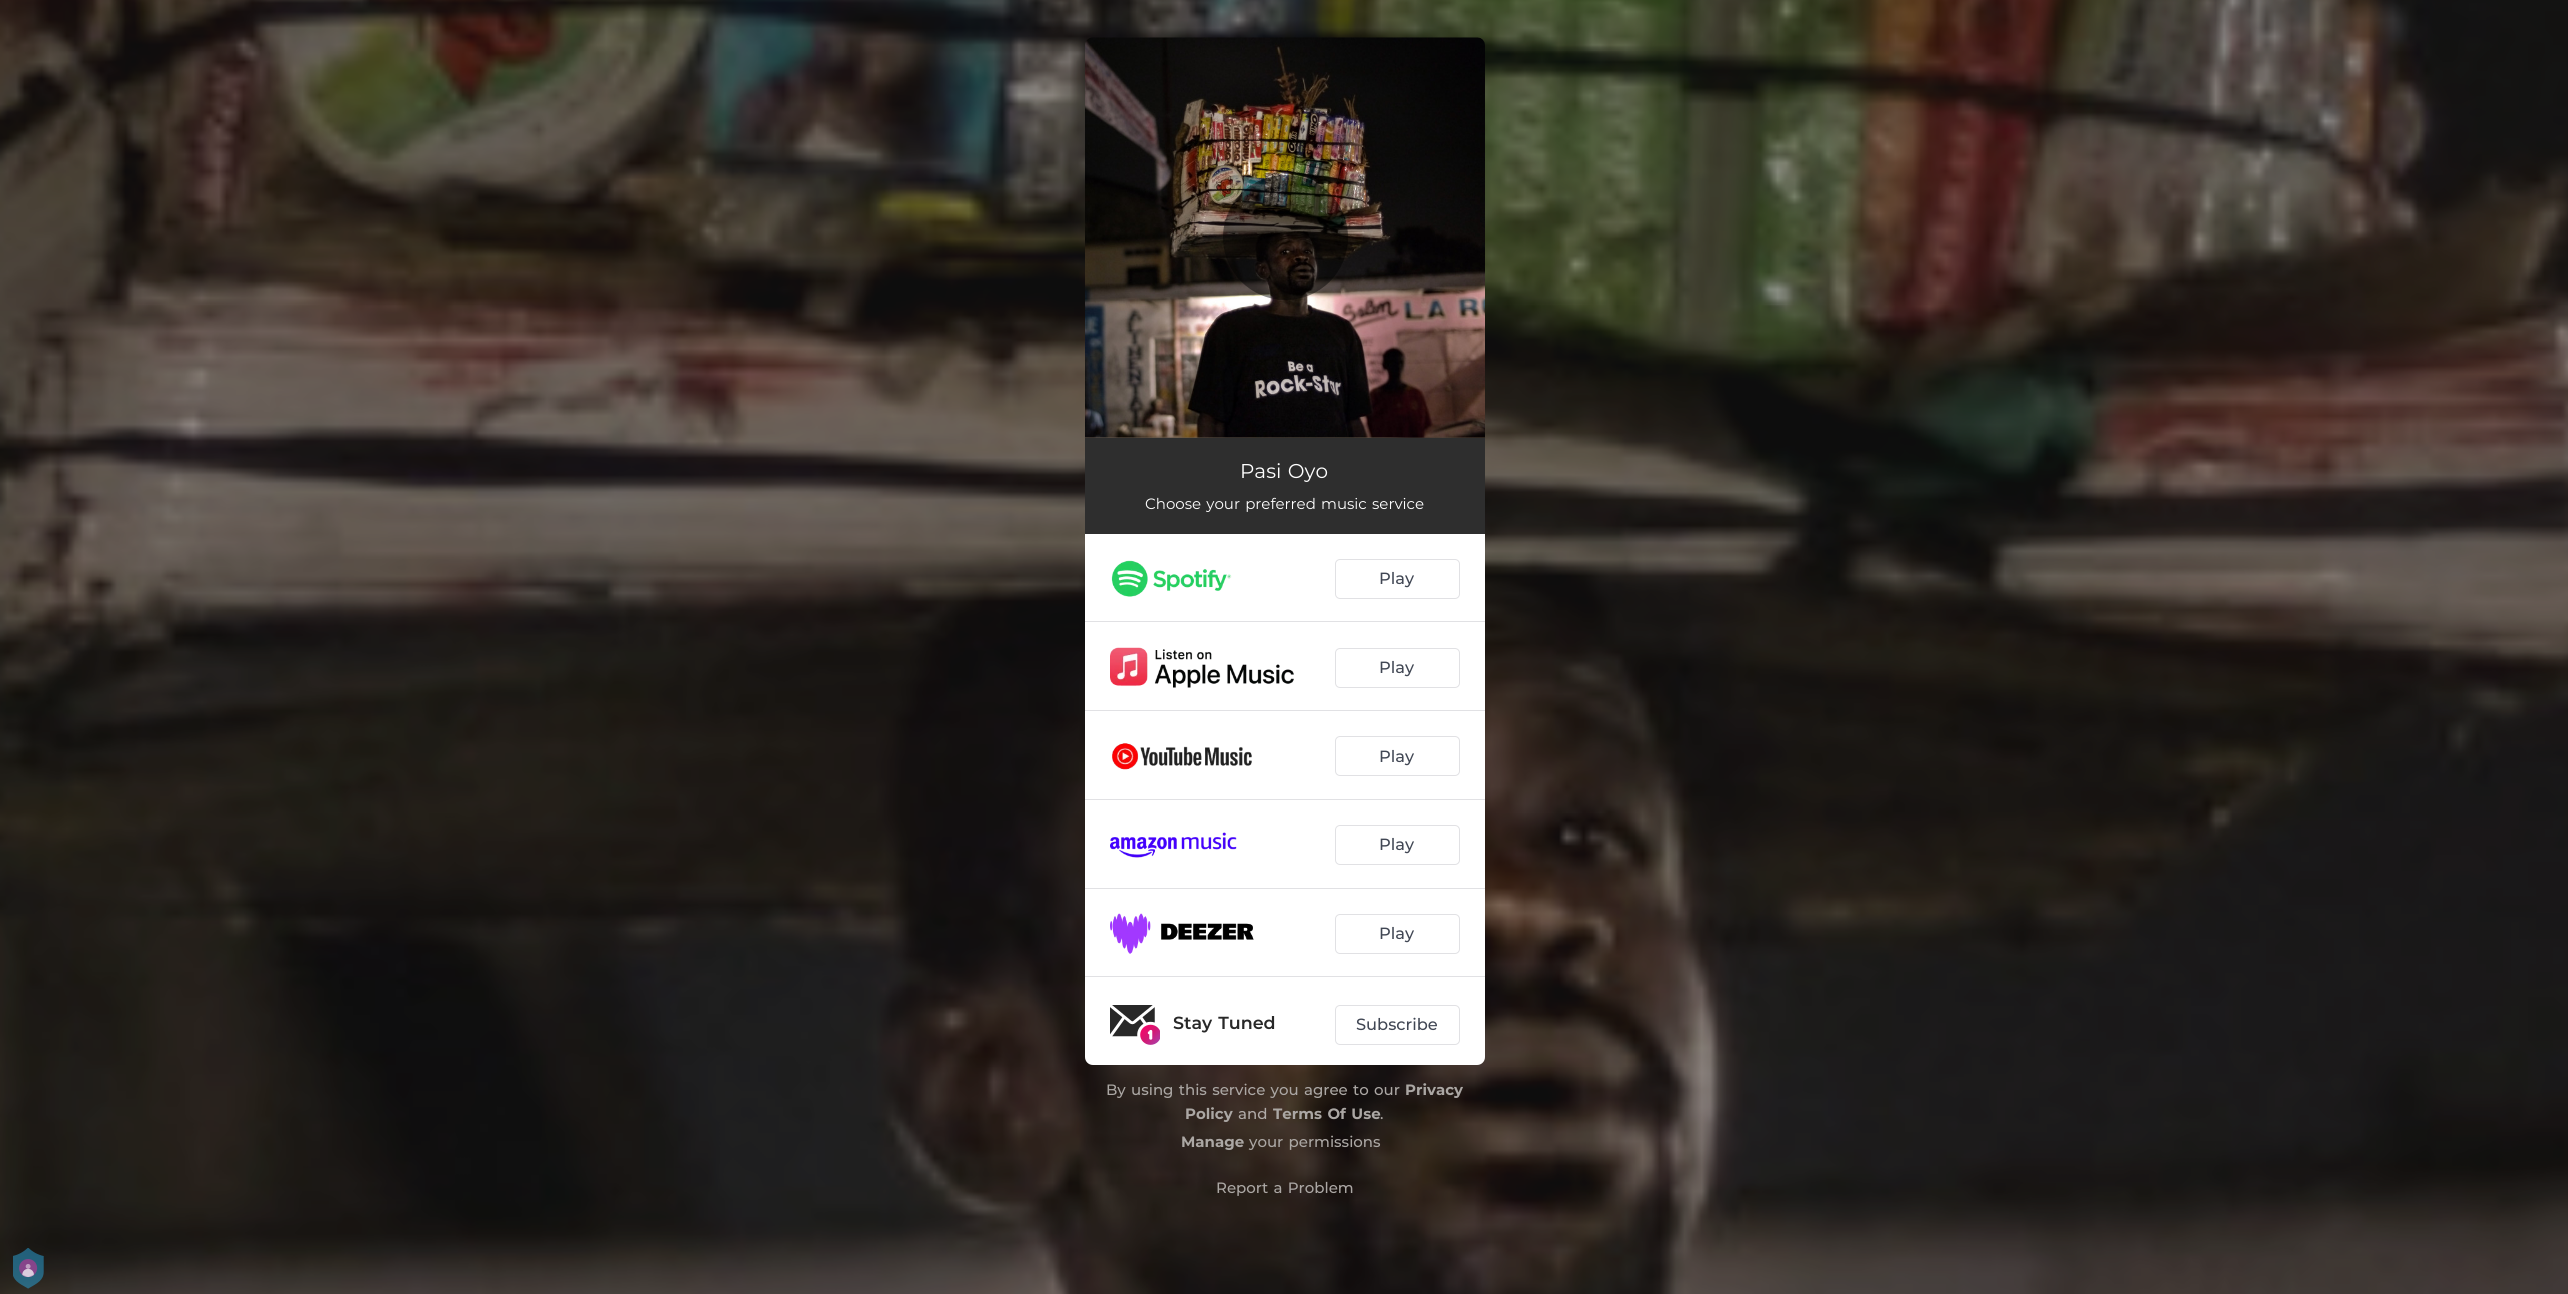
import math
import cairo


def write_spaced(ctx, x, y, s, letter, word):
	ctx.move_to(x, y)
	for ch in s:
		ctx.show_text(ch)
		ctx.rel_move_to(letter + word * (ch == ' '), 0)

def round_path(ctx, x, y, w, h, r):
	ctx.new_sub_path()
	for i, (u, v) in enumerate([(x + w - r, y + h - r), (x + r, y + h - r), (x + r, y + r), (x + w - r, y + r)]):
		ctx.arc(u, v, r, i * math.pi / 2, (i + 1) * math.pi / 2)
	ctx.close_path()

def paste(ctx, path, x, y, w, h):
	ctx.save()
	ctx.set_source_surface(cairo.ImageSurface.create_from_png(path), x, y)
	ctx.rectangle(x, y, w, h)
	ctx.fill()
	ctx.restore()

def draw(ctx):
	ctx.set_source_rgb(1, 1, 1)
	ctx.paint()
	paste(ctx, 'media/1.png', 0, 0, 2568, 1294)
	paste(ctx, 'media/2.png', 1085, 37, 400, 401)
	ctx.set_source_rgba(0, 0, 0, 0.45)
	ctx.arc(1285.5, 237.5, 62.5, 0, 2 * math.pi)
	ctx.fill()
	ctx.set_source_rgb(0.18, 0.18, 0.18)
	ctx.rectangle(1085, 438, 400, 96)
	ctx.fill()
	ctx.select_font_face('Montserrat')
	ctx.set_font_size(20)
	ctx.set_source_rgb(1, 1, 1)
	write_spaced(ctx, 1240, 478, 'Pasi Oyo', 0, 1.25)
	ctx.set_font_size(15)
	write_spaced(ctx, 1145, 509, 'Choose your preferred music service', 0, 1.25)
	ctx.new_path()
	ctx.move_to(1085, 534)
	ctx.line_to(1485, 534)
	ctx.line_to(1485, 1057)
	ctx.curve_to(1485, 1061.5, 1481.5, 1065, 1477, 1065)
	ctx.line_to(1093, 1065)
	ctx.curve_to(1088.5, 1065, 1085, 1061.5, 1085, 1057)
	ctx.close_path()
	ctx.fill()
	ctx.set_source_rgb(0.882, 0.882, 0.894)
	ctx.rectangle(1085, 621, 400, 1)
	ctx.fill()
	paste(ctx, 'media/3.png', 1111, 560, 121, 37)
	round_path(ctx, 1335.5, 559.5, 124, 39, 4.5)
	ctx.set_line_width(1)
	ctx.stroke()
	ctx.select_font_face('Montserrat Medium')
	ctx.set_font_size(16.25)
	ctx.set_source_rgb(0.255, 0.278, 0.329)
	ctx.move_to(1379, 584)
	ctx.show_text('Play')
	ctx.set_source_rgb(0.882, 0.882, 0.894)
	ctx.rectangle(1085, 710, 400, 1)
	ctx.fill()
	paste(ctx, 'media/4.png', 1110, 647, 184, 41)
	round_path(ctx, 1335.5, 648.5, 124, 39, 4.5)
	ctx.stroke()
	ctx.set_source_rgb(0.255, 0.278, 0.329)
	ctx.move_to(1379, 673)
	ctx.show_text('Play')
	ctx.set_source_rgb(0.882, 0.882, 0.894)
	ctx.rectangle(1085, 799, 400, 1)
	ctx.fill()
	paste(ctx, 'media/5.png', 1112, 743, 140, 27)
	round_path(ctx, 1335.5, 736.5, 124, 39, 4.5)
	ctx.stroke()
	ctx.set_source_rgb(0.255, 0.278, 0.329)
	ctx.move_to(1379, 762)
	ctx.show_text('Play')
	ctx.set_source_rgb(0.882, 0.882, 0.894)
	ctx.rectangle(1085, 888, 400, 1)
	ctx.fill()
	paste(ctx, 'media/6.png', 1110, 832, 127, 26)
	round_path(ctx, 1335.5, 825.5, 124, 39, 4.5)
	ctx.stroke()
	ctx.set_source_rgb(0.255, 0.278, 0.329)
	ctx.move_to(1379, 850)
	ctx.show_text('Play')
	ctx.set_source_rgb(0.882, 0.882, 0.894)
	ctx.rectangle(1085, 976, 400, 1)
	ctx.fill()
	paste(ctx, 'media/7.png', 1110, 913, 144, 41)
	round_path(ctx, 1335.5, 914.5, 124, 39, 4.5)
	ctx.stroke()
	ctx.set_source_rgb(0.255, 0.278, 0.329)
	ctx.move_to(1379, 939)
	ctx.show_text('Play')
	paste(ctx, 'media/8.png', 1110, 1005, 50, 40)
	ctx.select_font_face('Montserrat SemiBold')
	ctx.set_font_size(17.5)
	ctx.set_source_rgb(0.157, 0.157, 0.157)
	write_spaced(ctx, 1173, 1029, 'Stay Tuned', 0, 1.25)
	round_path(ctx, 1335.5, 1005.5, 124, 39, 4.5)
	ctx.set_source_rgb(0.882, 0.882, 0.894)
	ctx.stroke()
	ctx.select_font_face('Montserrat Medium')
	ctx.set_font_size(16.25)
	ctx.set_source_rgb(0.255, 0.278, 0.329)
	ctx.move_to(1356, 1030)
	ctx.show_text('Subscribe')
	ctx.set_font_size(15)
	ctx.set_source_rgb(0.671, 0.655, 0.643)
	write_spaced(ctx, 1106, 1095, 'By using this service you agree to our', 0, 1.25)
	ctx.select_font_face('Montserrat', cairo.FONT_SLANT_NORMAL, cairo.FONT_WEIGHT_BOLD)
	ctx.move_to(1405, 1095)
	ctx.show_text('Privacy')
	ctx.move_to(1185, 1119)
	ctx.show_text('Policy')
	ctx.select_font_face('Montserrat Medium')
	ctx.set_source_rgb(0.694, 0.671, 0.659)
	ctx.move_to(1238, 1119)
	ctx.show_text('and')
	ctx.select_font_face('Montserrat', cairo.FONT_SLANT_NORMAL, cairo.FONT_WEIGHT_BOLD)
	ctx.set_source_rgb(0.671, 0.655, 0.643)
	write_spaced(ctx, 1273, 1119, 'Terms Of Use', 0, 1.25)
	ctx.select_font_face('Montserrat Medium')
	ctx.move_to(1380, 1119)
	ctx.show_text('.')
	ctx.select_font_face('Montserrat', cairo.FONT_SLANT_NORMAL, cairo.FONT_WEIGHT_BOLD)
	ctx.move_to(1181, 1147)
	ctx.show_text('Manage')
	ctx.select_font_face('Montserrat Medium')
	write_spaced(ctx, 1249, 1147, 'your permissions', 0, 1.25)
	write_spaced(ctx, 1216, 1193, 'Report a Problem', 0, 1.25)
	paste(ctx, 'media/9.png', 13, 1248, 31, 41)


surface = cairo.ImageSurface(cairo.FORMAT_RGB24, 2568, 1294)
ctx = cairo.Context(surface)
options = cairo.FontOptions()
options.set_hint_metrics(cairo.HINT_METRICS_OFF)
options.set_hint_style(cairo.HINT_STYLE_NONE)
ctx.set_font_options(options)
ctx.set_miter_limit(4)
draw(ctx)
surface.write_to_png('image.png')
